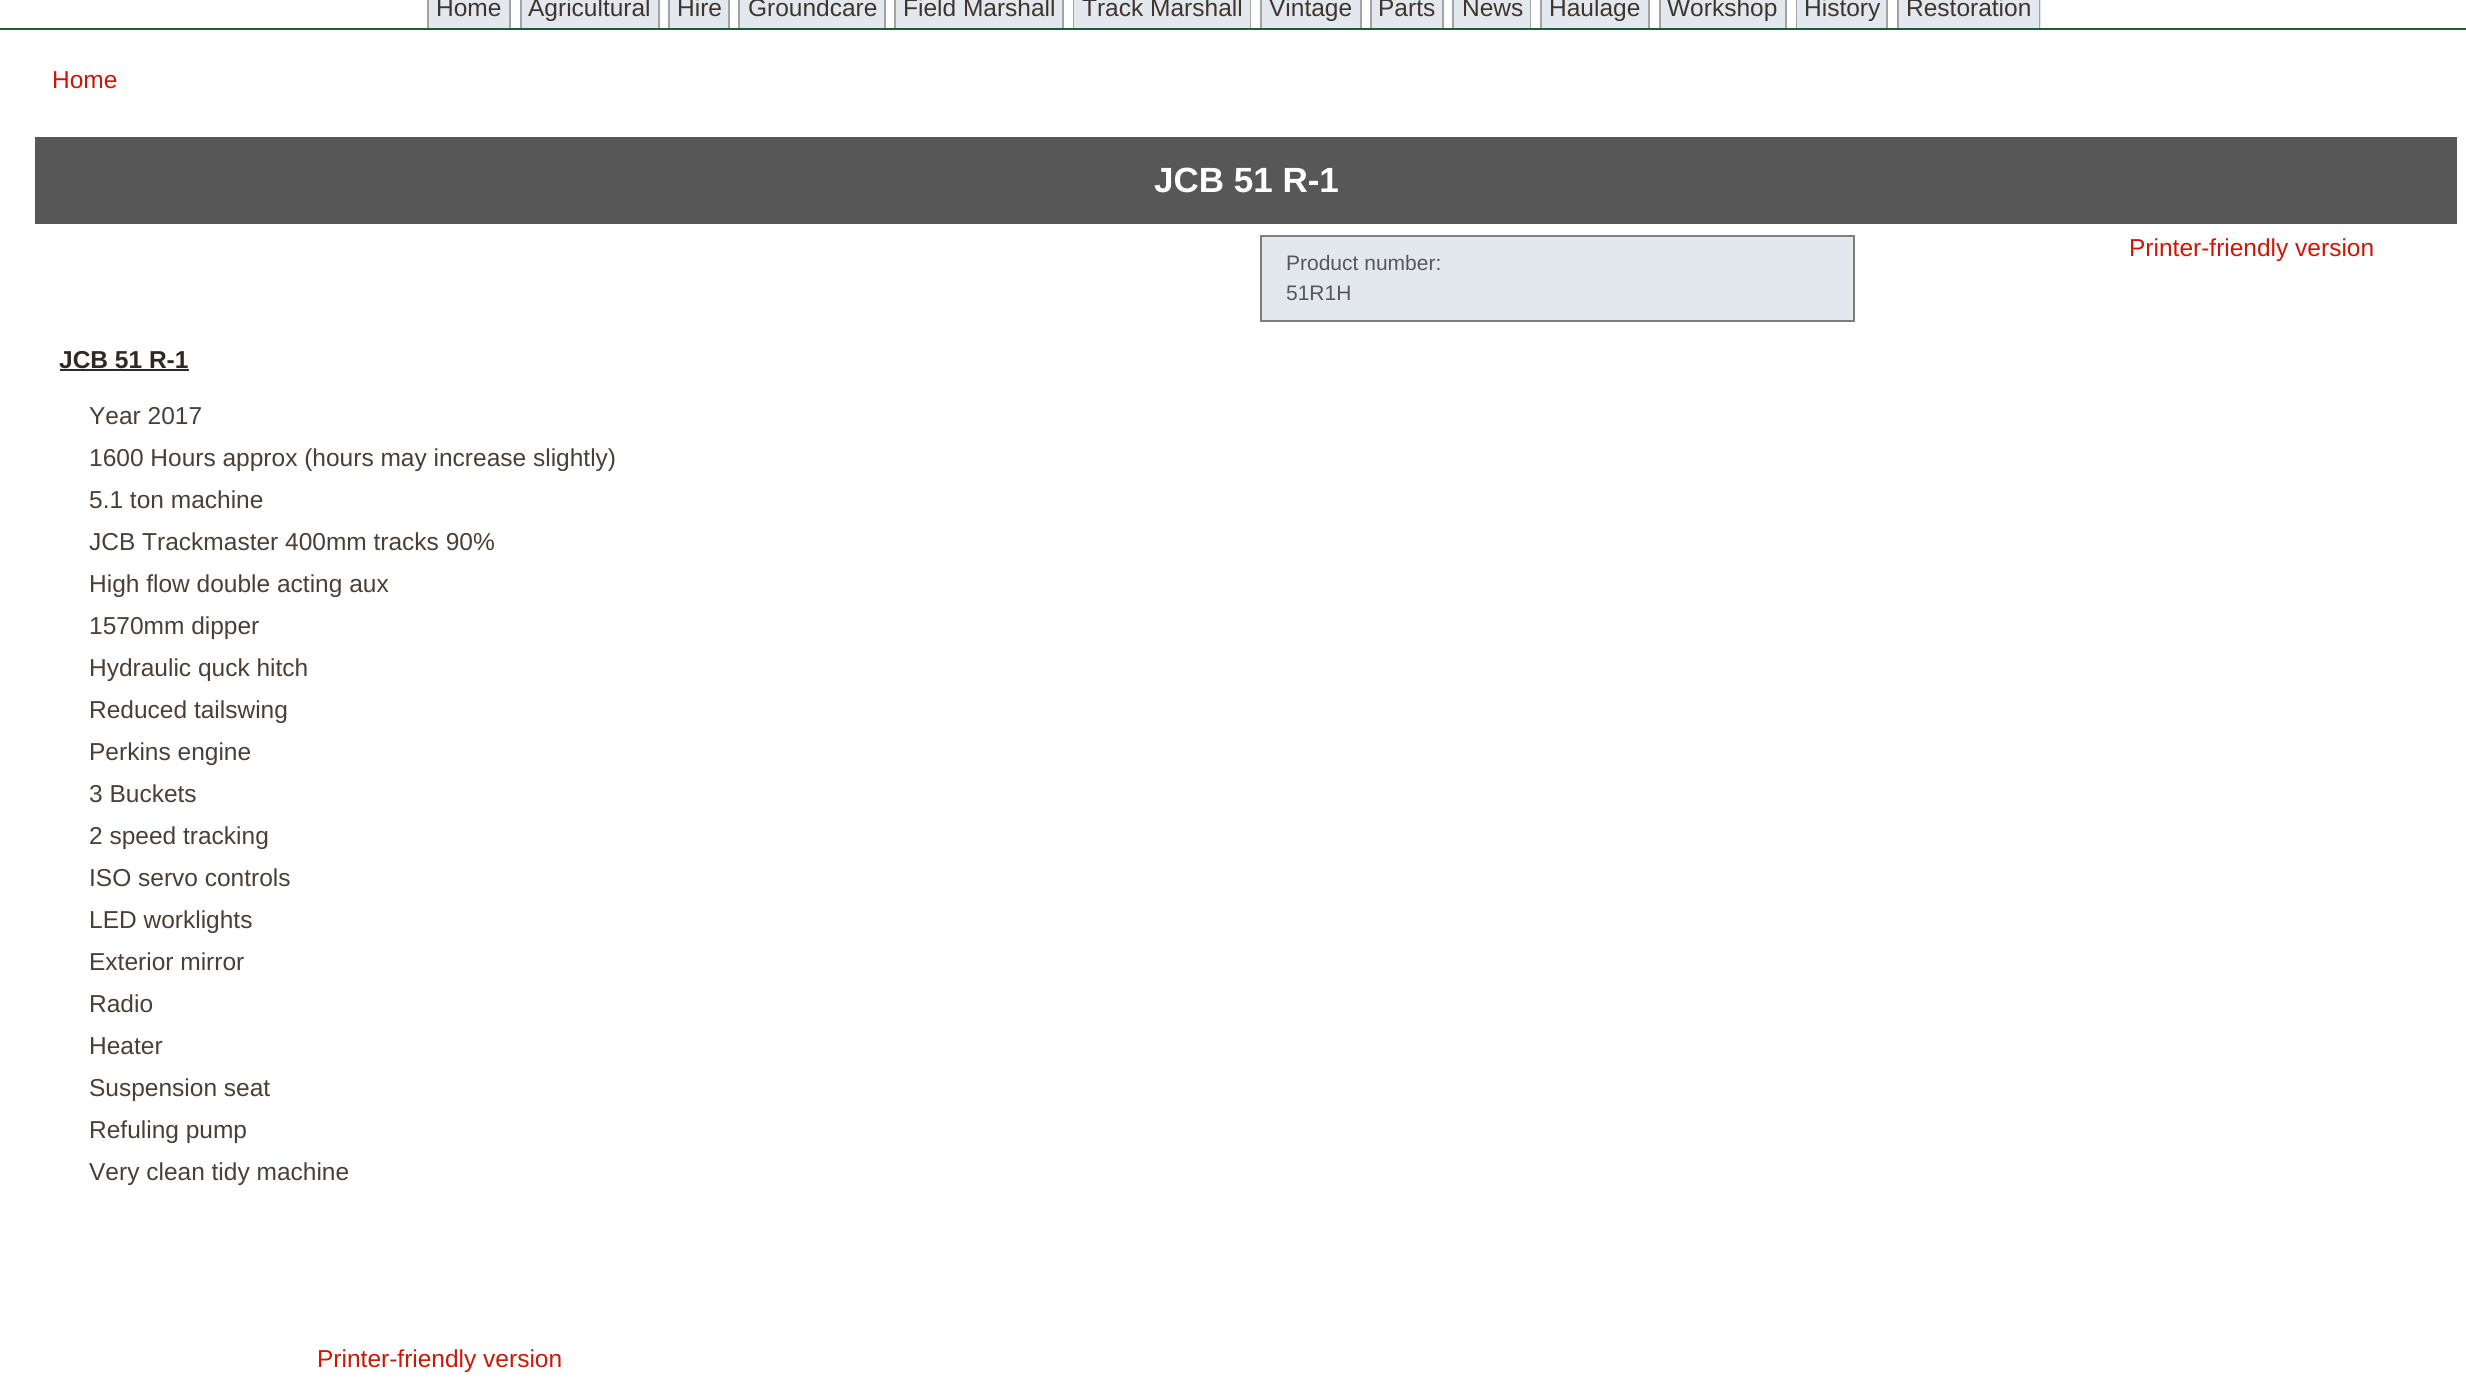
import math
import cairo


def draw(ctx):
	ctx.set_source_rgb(1, 1, 1)
	ctx.paint()
	ctx.set_source_rgb(0.098, 0.373, 0.216)
	ctx.rectangle(0, 28, 2466, 2)
	ctx.fill()
	ctx.set_source_rgb(0.886, 0.91, 0.933)
	ctx.rectangle(429, 0, 80, 28)
	ctx.fill()
	ctx.set_source_rgb(0.639, 0.639, 0.639)
	ctx.set_fill_rule(cairo.FILL_RULE_EVEN_ODD)
	ctx.new_path()
	ctx.move_to(432, -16)
	ctx.line_to(506, -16)
	ctx.curve_to(509, -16, 511, -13, 511, -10)
	ctx.line_to(511, 28)
	ctx.line_to(427, 28)
	ctx.line_to(427, -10)
	ctx.curve_to(427, -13, 429, -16, 432, -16)
	ctx.close_path()
	ctx.move_to(432, -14)
	ctx.line_to(506, -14)
	ctx.curve_to(508, -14, 509, -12, 509, -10)
	ctx.line_to(509, 28)
	ctx.line_to(429, 28)
	ctx.line_to(429, -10)
	ctx.curve_to(429, -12, 430, -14, 432, -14)
	ctx.close_path()
	ctx.fill()
	ctx.select_font_face('Liberation Sans')
	ctx.set_font_size(24.5)
	ctx.set_source_rgb(0.247, 0.208, 0.173)
	ctx.move_to(436, 16)
	ctx.show_text('Home')
	ctx.set_source_rgb(0.886, 0.91, 0.933)
	ctx.rectangle(522, 0, 136, 28)
	ctx.fill()
	ctx.set_source_rgb(0.639, 0.639, 0.639)
	ctx.new_path()
	ctx.move_to(525, -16)
	ctx.line_to(654, -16)
	ctx.curve_to(657, -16, 660, -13, 660, -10)
	ctx.line_to(660, 28)
	ctx.line_to(520, 28)
	ctx.line_to(520, -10)
	ctx.curve_to(520, -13, 522, -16, 525, -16)
	ctx.close_path()
	ctx.move_to(525, -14)
	ctx.line_to(654, -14)
	ctx.curve_to(656, -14, 658, -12, 658, -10)
	ctx.line_to(658, 28)
	ctx.line_to(522, 28)
	ctx.line_to(522, -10)
	ctx.curve_to(522, -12, 523, -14, 525, -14)
	ctx.close_path()
	ctx.fill()
	ctx.set_source_rgb(0.247, 0.208, 0.173)
	ctx.move_to(528, 16)
	ctx.show_text('Agricultural')
	ctx.set_source_rgb(0.886, 0.91, 0.933)
	ctx.rectangle(670, 0, 58, 28)
	ctx.fill()
	ctx.set_source_rgb(0.639, 0.639, 0.639)
	ctx.new_path()
	ctx.move_to(674, -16)
	ctx.line_to(724, -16)
	ctx.curve_to(727, -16, 730, -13, 730, -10)
	ctx.line_to(730, 28)
	ctx.line_to(668, 28)
	ctx.line_to(668, -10)
	ctx.curve_to(668, -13, 671, -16, 674, -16)
	ctx.close_path()
	ctx.move_to(674, -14)
	ctx.line_to(724, -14)
	ctx.curve_to(726, -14, 728, -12, 728, -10)
	ctx.line_to(728, 28)
	ctx.line_to(670, 28)
	ctx.line_to(670, -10)
	ctx.curve_to(670, -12, 672, -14, 674, -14)
	ctx.close_path()
	ctx.fill()
	ctx.set_source_rgb(0.247, 0.208, 0.173)
	ctx.move_to(677, 16)
	ctx.show_text('Hire')
	ctx.set_source_rgb(0.886, 0.91, 0.933)
	ctx.rectangle(740, 0, 144, 28)
	ctx.fill()
	ctx.set_source_rgb(0.639, 0.639, 0.639)
	ctx.new_path()
	ctx.move_to(744, -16)
	ctx.line_to(880, -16)
	ctx.curve_to(883, -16, 886, -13, 886, -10)
	ctx.line_to(886, 28)
	ctx.line_to(738, 28)
	ctx.line_to(738, -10)
	ctx.curve_to(738, -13, 741, -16, 744, -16)
	ctx.close_path()
	ctx.move_to(744, -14)
	ctx.line_to(880, -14)
	ctx.curve_to(882, -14, 884, -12, 884, -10)
	ctx.line_to(884, 28)
	ctx.line_to(740, 28)
	ctx.line_to(740, -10)
	ctx.curve_to(740, -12, 742, -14, 744, -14)
	ctx.close_path()
	ctx.fill()
	ctx.set_source_rgb(0.247, 0.208, 0.173)
	ctx.move_to(748, 16)
	ctx.show_text('Groundcare')
	ctx.set_source_rgb(0.886, 0.91, 0.933)
	ctx.rectangle(896, 0, 166, 28)
	ctx.fill()
	ctx.set_source_rgb(0.639, 0.639, 0.639)
	ctx.new_path()
	ctx.move_to(900, -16)
	ctx.line_to(1059, -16)
	ctx.curve_to(1062, -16, 1064, -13, 1064, -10)
	ctx.line_to(1064, 28)
	ctx.line_to(894, 28)
	ctx.line_to(894, -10)
	ctx.curve_to(894, -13, 897, -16, 900, -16)
	ctx.close_path()
	ctx.move_to(900, -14)
	ctx.line_to(1059, -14)
	ctx.curve_to(1061, -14, 1062, -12, 1062, -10)
	ctx.line_to(1062, 28)
	ctx.line_to(896, 28)
	ctx.line_to(896, -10)
	ctx.curve_to(896, -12, 898, -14, 900, -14)
	ctx.close_path()
	ctx.fill()
	ctx.set_source_rgb(0.247, 0.208, 0.173)
	ctx.move_to(903, 16)
	ctx.show_text('Field Marshall')
	ctx.set_source_rgb(0.886, 0.91, 0.933)
	ctx.rectangle(1074, 0, 176, 28)
	ctx.fill()
	ctx.set_source_rgb(0.639, 0.639, 0.639)
	ctx.new_path()
	ctx.move_to(1078, -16)
	ctx.line_to(1246, -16)
	ctx.curve_to(1249, -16, 1251, -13, 1251, -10)
	ctx.line_to(1251, 28)
	ctx.line_to(1073, 28)
	ctx.line_to(1073, -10)
	ctx.curve_to(1073, -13, 1075, -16, 1078, -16)
	ctx.close_path()
	ctx.move_to(1078, -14)
	ctx.line_to(1246, -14)
	ctx.curve_to(1248, -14, 1250, -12, 1250, -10)
	ctx.line_to(1250, 28)
	ctx.line_to(1074, 28)
	ctx.line_to(1074, -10)
	ctx.curve_to(1074, -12, 1076, -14, 1078, -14)
	ctx.close_path()
	ctx.fill()
	ctx.set_source_rgb(0.247, 0.208, 0.173)
	ctx.move_to(1082, 16)
	ctx.show_text('Track Marshall')
	ctx.set_source_rgb(0.886, 0.91, 0.933)
	ctx.rectangle(1262, 0, 98, 28)
	ctx.fill()
	ctx.set_source_rgb(0.639, 0.639, 0.639)
	ctx.new_path()
	ctx.move_to(1265, -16)
	ctx.line_to(1356, -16)
	ctx.curve_to(1359, -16, 1362, -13, 1362, -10)
	ctx.line_to(1362, 28)
	ctx.line_to(1260, 28)
	ctx.line_to(1260, -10)
	ctx.curve_to(1260, -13, 1262, -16, 1265, -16)
	ctx.close_path()
	ctx.move_to(1265, -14)
	ctx.line_to(1356, -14)
	ctx.curve_to(1358, -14, 1360, -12, 1360, -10)
	ctx.line_to(1360, 28)
	ctx.line_to(1262, 28)
	ctx.line_to(1262, -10)
	ctx.curve_to(1262, -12, 1263, -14, 1265, -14)
	ctx.close_path()
	ctx.fill()
	ctx.set_source_rgb(0.247, 0.208, 0.173)
	ctx.move_to(1269, 16)
	ctx.show_text('Vintage')
	ctx.set_source_rgb(0.886, 0.91, 0.933)
	ctx.rectangle(1372, 0, 70, 28)
	ctx.fill()
	ctx.set_source_rgb(0.639, 0.639, 0.639)
	ctx.new_path()
	ctx.move_to(1376, -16)
	ctx.line_to(1438, -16)
	ctx.curve_to(1441, -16, 1444, -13, 1444, -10)
	ctx.line_to(1444, 28)
	ctx.line_to(1370, 28)
	ctx.line_to(1370, -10)
	ctx.curve_to(1370, -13, 1373, -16, 1376, -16)
	ctx.close_path()
	ctx.move_to(1376, -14)
	ctx.line_to(1438, -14)
	ctx.curve_to(1440, -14, 1442, -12, 1442, -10)
	ctx.line_to(1442, 28)
	ctx.line_to(1372, 28)
	ctx.line_to(1372, -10)
	ctx.curve_to(1372, -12, 1374, -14, 1376, -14)
	ctx.close_path()
	ctx.fill()
	ctx.set_source_rgb(0.247, 0.208, 0.173)
	ctx.move_to(1378, 16)
	ctx.show_text('Parts')
	ctx.set_source_rgb(0.886, 0.91, 0.933)
	ctx.rectangle(1454, 0, 76, 28)
	ctx.fill()
	ctx.set_source_rgb(0.639, 0.639, 0.639)
	ctx.new_path()
	ctx.move_to(1458, -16)
	ctx.line_to(1526, -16)
	ctx.curve_to(1529, -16, 1531, -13, 1531, -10)
	ctx.line_to(1531, 28)
	ctx.line_to(1452, 28)
	ctx.line_to(1452, -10)
	ctx.curve_to(1452, -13, 1455, -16, 1458, -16)
	ctx.close_path()
	ctx.move_to(1458, -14)
	ctx.line_to(1526, -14)
	ctx.curve_to(1528, -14, 1530, -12, 1530, -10)
	ctx.line_to(1530, 28)
	ctx.line_to(1454, 28)
	ctx.line_to(1454, -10)
	ctx.curve_to(1454, -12, 1456, -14, 1458, -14)
	ctx.close_path()
	ctx.fill()
	ctx.set_source_rgb(0.247, 0.208, 0.173)
	ctx.move_to(1462, 16)
	ctx.show_text('News')
	ctx.set_source_rgb(0.886, 0.91, 0.933)
	ctx.rectangle(1542, 0, 106, 28)
	ctx.fill()
	ctx.set_source_rgb(0.639, 0.639, 0.639)
	ctx.new_path()
	ctx.move_to(1545, -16)
	ctx.line_to(1645, -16)
	ctx.curve_to(1648, -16, 1650, -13, 1650, -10)
	ctx.line_to(1650, 28)
	ctx.line_to(1540, 28)
	ctx.line_to(1540, -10)
	ctx.curve_to(1540, -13, 1542, -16, 1545, -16)
	ctx.close_path()
	ctx.move_to(1545, -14)
	ctx.line_to(1645, -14)
	ctx.curve_to(1647, -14, 1648, -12, 1648, -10)
	ctx.line_to(1648, 28)
	ctx.line_to(1542, 28)
	ctx.line_to(1542, -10)
	ctx.curve_to(1542, -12, 1543, -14, 1545, -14)
	ctx.close_path()
	ctx.fill()
	ctx.set_source_rgb(0.247, 0.208, 0.173)
	ctx.move_to(1549, 16)
	ctx.show_text('Haulage')
	ctx.set_source_rgb(0.886, 0.91, 0.933)
	ctx.rectangle(1661, 0, 124, 28)
	ctx.fill()
	ctx.set_source_rgb(0.639, 0.639, 0.639)
	ctx.new_path()
	ctx.move_to(1664, -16)
	ctx.line_to(1782, -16)
	ctx.curve_to(1784, -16, 1787, -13, 1787, -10)
	ctx.line_to(1787, 28)
	ctx.line_to(1659, 28)
	ctx.line_to(1659, -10)
	ctx.curve_to(1659, -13, 1661, -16, 1664, -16)
	ctx.close_path()
	ctx.move_to(1664, -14)
	ctx.line_to(1782, -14)
	ctx.curve_to(1783, -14, 1785, -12, 1785, -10)
	ctx.line_to(1785, 28)
	ctx.line_to(1661, 28)
	ctx.line_to(1661, -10)
	ctx.curve_to(1661, -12, 1662, -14, 1664, -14)
	ctx.close_path()
	ctx.fill()
	ctx.set_source_rgb(0.247, 0.208, 0.173)
	ctx.move_to(1667, 16)
	ctx.show_text('Workshop')
	ctx.set_source_rgb(0.886, 0.91, 0.933)
	ctx.rectangle(1797, 0, 89, 28)
	ctx.fill()
	ctx.set_source_rgb(0.639, 0.639, 0.639)
	ctx.new_path()
	ctx.move_to(1801, -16)
	ctx.line_to(1883, -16)
	ctx.curve_to(1886, -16, 1888, -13, 1888, -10)
	ctx.line_to(1888, 28)
	ctx.line_to(1796, 28)
	ctx.line_to(1796, -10)
	ctx.curve_to(1796, -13, 1798, -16, 1801, -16)
	ctx.close_path()
	ctx.move_to(1801, -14)
	ctx.line_to(1883, -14)
	ctx.curve_to(1885, -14, 1886, -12, 1886, -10)
	ctx.line_to(1886, 28)
	ctx.line_to(1797, 28)
	ctx.line_to(1797, -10)
	ctx.curve_to(1797, -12, 1799, -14, 1801, -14)
	ctx.close_path()
	ctx.fill()
	ctx.set_source_rgb(0.247, 0.208, 0.173)
	ctx.move_to(1804, 16)
	ctx.show_text('History')
	ctx.set_source_rgb(0.886, 0.91, 0.933)
	ctx.rectangle(1899, 0, 142, 28)
	ctx.fill()
	ctx.set_source_rgb(0.639, 0.639, 0.639)
	ctx.new_path()
	ctx.move_to(1902, -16)
	ctx.line_to(2035, -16)
	ctx.curve_to(2038, -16, 2040, -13, 2040, -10)
	ctx.line_to(2040, 28)
	ctx.line_to(1897, 28)
	ctx.line_to(1897, -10)
	ctx.curve_to(1897, -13, 1899, -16, 1902, -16)
	ctx.close_path()
	ctx.move_to(1902, -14)
	ctx.line_to(2035, -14)
	ctx.curve_to(2037, -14, 2039, -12, 2039, -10)
	ctx.line_to(2039, 28)
	ctx.line_to(1899, 28)
	ctx.line_to(1899, -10)
	ctx.curve_to(1899, -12, 1900, -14, 1902, -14)
	ctx.close_path()
	ctx.fill()
	ctx.set_source_rgb(0.247, 0.208, 0.173)
	ctx.move_to(1906, 16)
	ctx.show_text('Restoration')
	ctx.set_source_rgb(0.796, 0.09, 0.024)
	ctx.move_to(52, 88)
	ctx.show_text('Home')
	ctx.set_source_rgb(0.341, 0.341, 0.341)
	ctx.rectangle(35, 137, 2422, 87)
	ctx.fill()
	ctx.select_font_face('Liberation Sans', cairo.FONT_SLANT_NORMAL, cairo.FONT_WEIGHT_BOLD)
	ctx.set_font_size(35)
	ctx.set_source_rgb(1, 1, 1)
	ctx.move_to(1154, 192)
	ctx.show_text('JCB 51 R-1')
	ctx.select_font_face('Liberation Sans')
	ctx.set_font_size(24.5)
	ctx.set_source_rgb(0.796, 0.09, 0.024)
	ctx.move_to(2129, 256)
	ctx.show_text('Printer-friendly version')
	ctx.set_source_rgb(0.886, 0.91, 0.933)
	ctx.rectangle(1261, 236, 593, 85)
	ctx.fill_preserve()
	ctx.set_source_rgb(0.49, 0.49, 0.49)
	ctx.stroke()
	ctx.set_font_size(21)
	ctx.set_source_rgb(0.341, 0.341, 0.341)
	ctx.move_to(1286, 270)
	ctx.show_text('Product number:')
	ctx.move_to(1286, 300)
	ctx.show_text('51R1H')
	ctx.select_font_face('Liberation Sans', cairo.FONT_SLANT_NORMAL, cairo.FONT_WEIGHT_BOLD)
	ctx.set_font_size(24.5)
	ctx.set_source_rgb(0.188, 0.157, 0.133)
	ctx.move_to(59, 368)
	ctx.show_text('JCB 51 R-1')
	ctx.rectangle(60, 369, 129, 2)
	ctx.fill()
	ctx.select_font_face('Liberation Sans')
	ctx.set_source_rgb(0.294, 0.247, 0.208)
	for x, y, s in [
		(89, 424, 'Year 2017'),
		(89, 466, '1600 Hours approx (hours may increase slightly)'),
		(89, 508, '5.1 ton machine'),
		(89, 550, 'JCB Trackmaster 400mm tracks 90%'),
		(89, 592, 'High flow double acting aux'),
		(89, 634, '1570mm dipper'),
		(89, 676, 'Hydraulic quck hitch'),
		(89, 718, 'Reduced tailswing'),
		(89, 760, 'Perkins engine'),
		(89, 802, '3 Buckets'),
		(89, 844, '2 speed tracking'),
		(89, 886, 'ISO servo controls'),
		(89, 928, 'LED worklights'),
		(89, 970, 'Exterior mirror'),
		(89, 1012, 'Radio'),
		(89, 1054, 'Heater'),
		(89, 1096, 'Suspension seat'),
		(89, 1138, 'Refuling pump'),
		(89, 1180, 'Very clean tidy machine'),
	]:
		ctx.move_to(x, y)
		ctx.show_text(s)
	ctx.set_source_rgb(0.796, 0.09, 0.024)
	ctx.move_to(317, 1367)
	ctx.show_text('Printer-friendly version')


surface = cairo.ImageSurface(cairo.FORMAT_RGB24, 2466, 1395)
ctx = cairo.Context(surface)
options = cairo.FontOptions()
options.set_hint_metrics(cairo.HINT_METRICS_OFF)
options.set_hint_style(cairo.HINT_STYLE_NONE)
ctx.set_font_options(options)
ctx.set_miter_limit(4)
draw(ctx)
surface.write_to_png('image.png')
